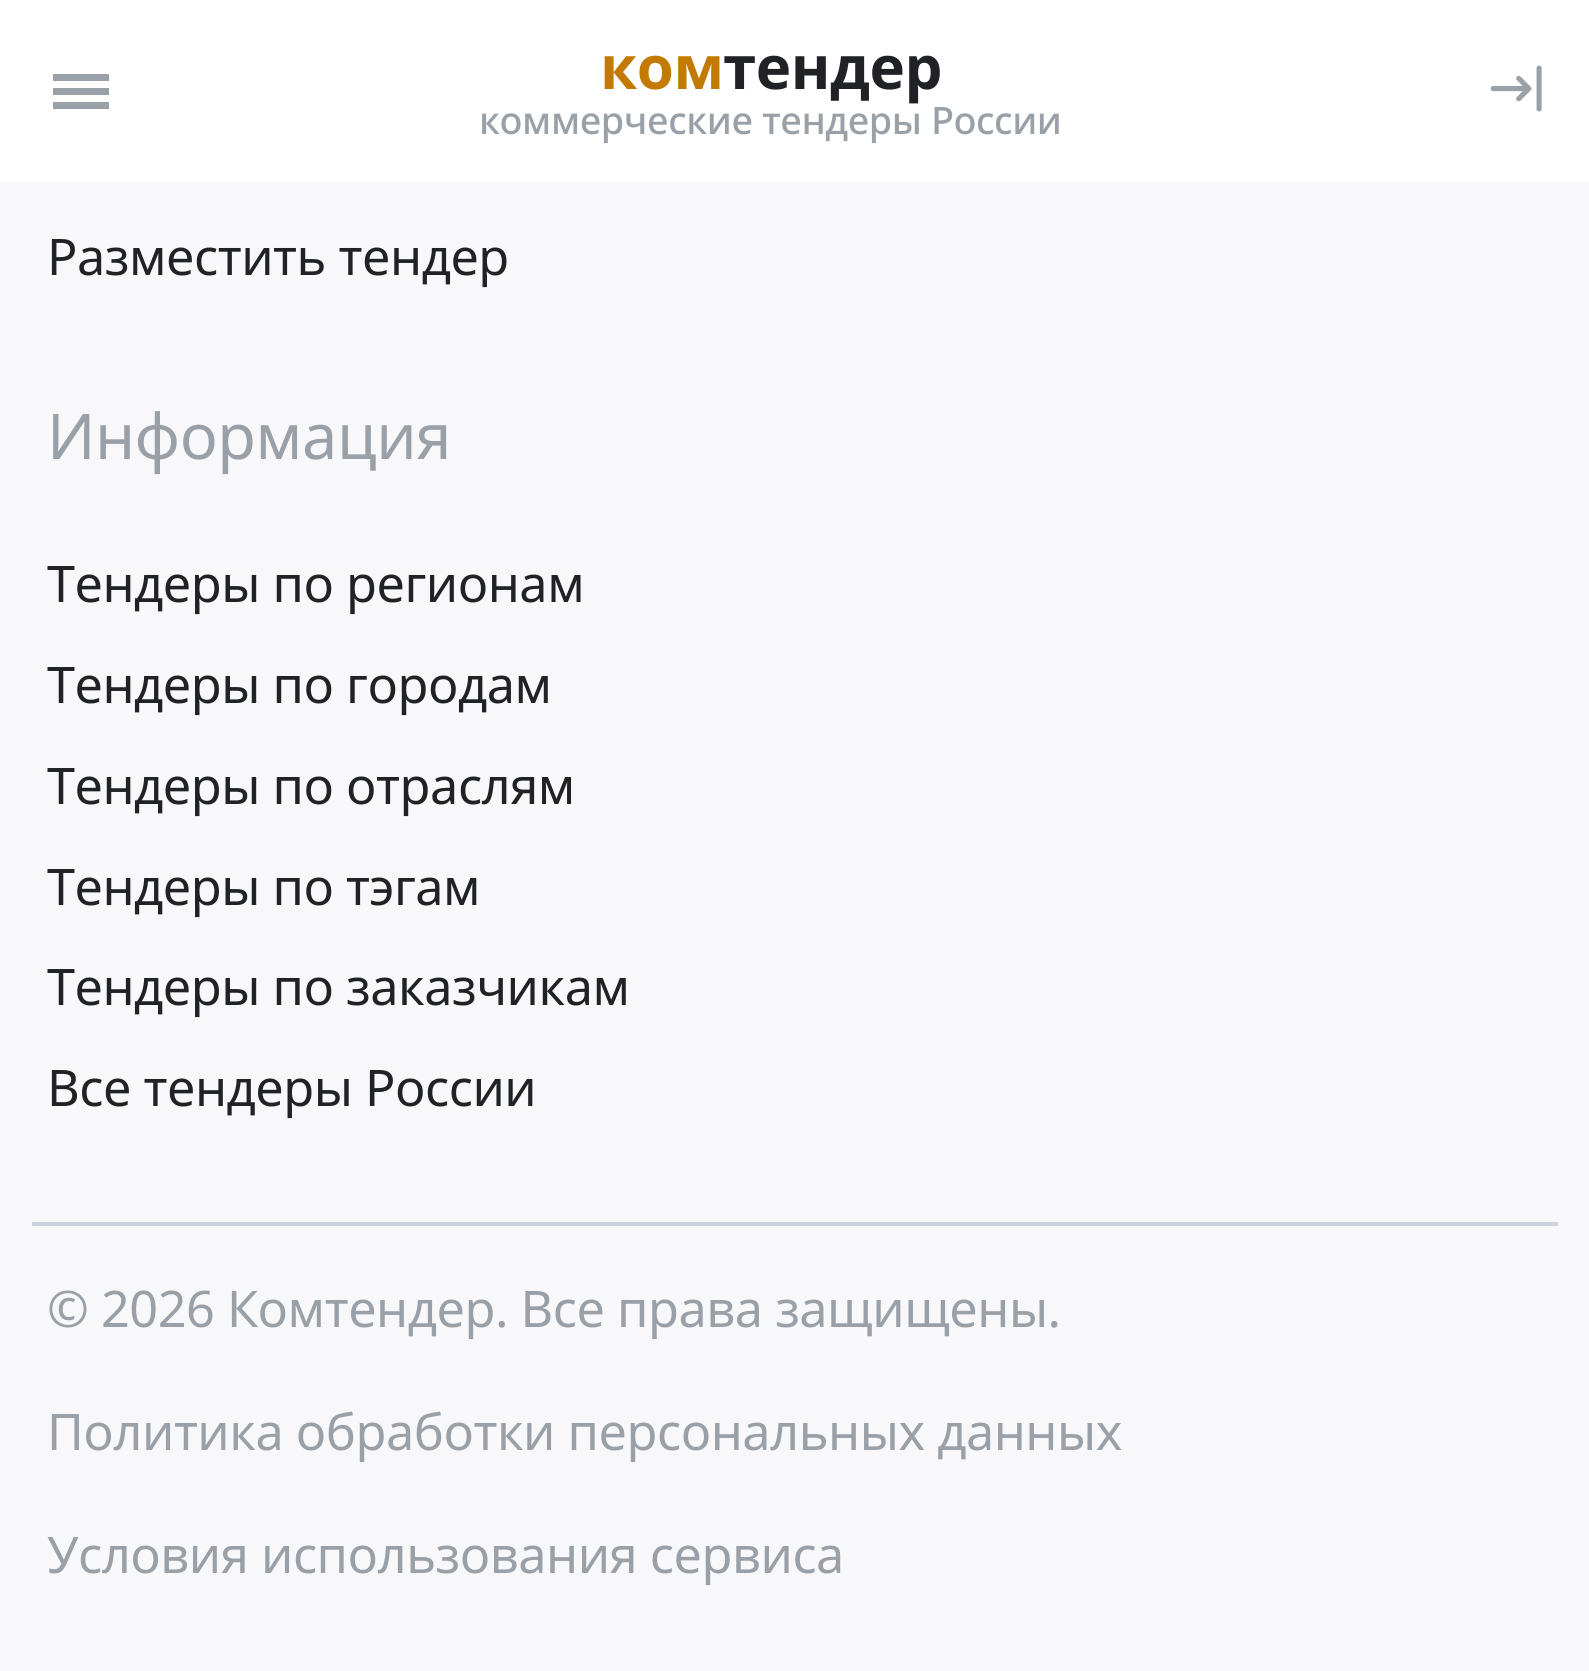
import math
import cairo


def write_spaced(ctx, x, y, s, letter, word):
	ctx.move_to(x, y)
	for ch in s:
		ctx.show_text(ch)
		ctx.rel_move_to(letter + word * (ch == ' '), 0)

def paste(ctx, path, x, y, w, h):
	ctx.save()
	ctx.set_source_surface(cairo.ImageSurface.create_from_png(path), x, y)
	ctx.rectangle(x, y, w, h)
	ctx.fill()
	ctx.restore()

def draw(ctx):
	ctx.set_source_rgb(0.969, 0.969, 0.98)
	ctx.paint()
	ctx.set_source_rgb(1, 1, 1)
	ctx.rectangle(0, 0, 1589, 182)
	ctx.fill()
	ctx.set_source_rgb(0.6, 0.627, 0.659)
	ctx.rectangle(53, 74, 56, 7)
	ctx.rectangle(53, 88, 56, 7)
	ctx.rectangle(53, 102, 56, 7)
	ctx.fill()
	ctx.select_font_face('Noto Sans', cairo.FONT_SLANT_NORMAL, cairo.FONT_WEIGHT_BOLD)
	ctx.set_font_size(60)
	ctx.set_source_rgb(0.761, 0.482, 0)
	write_spaced(ctx, 600, 89, 'ком', -0.45, 0)
	ctx.set_source_rgb(0.125, 0.133, 0.149)
	write_spaced(ctx, 723, 89, 'тендер', -0.45, 0)
	ctx.select_font_face('Noto Sans Medium')
	ctx.set_font_size(37.75)
	ctx.set_source_rgb(0.6, 0.627, 0.659)
	write_spaced(ctx, 479, 134, 'коммерческие тендеры России', -0.45, 0)
	paste(ctx, 'media/1.png', 1490, 65, 52, 47)
	ctx.select_font_face('Noto Sans')
	ctx.set_font_size(50.4)
	ctx.set_source_rgb(0.125, 0.133, 0.149)
	write_spaced(ctx, 47, 275, 'Разместить тендер', -0.5, 0)
	ctx.set_font_size(63)
	ctx.set_source_rgb(0.6, 0.627, 0.659)
	write_spaced(ctx, 47, 459, 'Информация', -0.5, 0)
	ctx.set_font_size(50.4)
	ctx.set_source_rgb(0.125, 0.133, 0.149)
	for x, y, s in [
		(47, 602, 'Тендеры по регионам'),
		(47, 703, 'Тендеры по городам'),
		(47, 804, 'Тендеры по отраслям'),
		(47, 905, 'Тендеры по тэгам'),
		(47, 1005, 'Тендеры по заказчикам'),
		(47, 1106, 'Все тендеры России'),
	]:
		write_spaced(ctx, x, y, s, -0.5, 0)
	ctx.set_source_rgb(0.808, 0.827, 0.867)
	ctx.rectangle(32, 1222, 1526, 4)
	ctx.fill()
	ctx.set_source_rgb(0.6, 0.627, 0.659)
	for x, y, s in [
		(47, 1327, '© 2026 Комтендер. Все права защищены.'),
		(47, 1450, 'Политика обработки персональных данных'),
		(47, 1573, 'Условия использования сервиса'),
	]:
		write_spaced(ctx, x, y, s, -0.5, 0)


surface = cairo.ImageSurface(cairo.FORMAT_RGB24, 1589, 1671)
ctx = cairo.Context(surface)
options = cairo.FontOptions()
options.set_hint_metrics(cairo.HINT_METRICS_OFF)
options.set_hint_style(cairo.HINT_STYLE_NONE)
ctx.set_font_options(options)
ctx.set_miter_limit(4)
draw(ctx)
surface.write_to_png('image.png')
